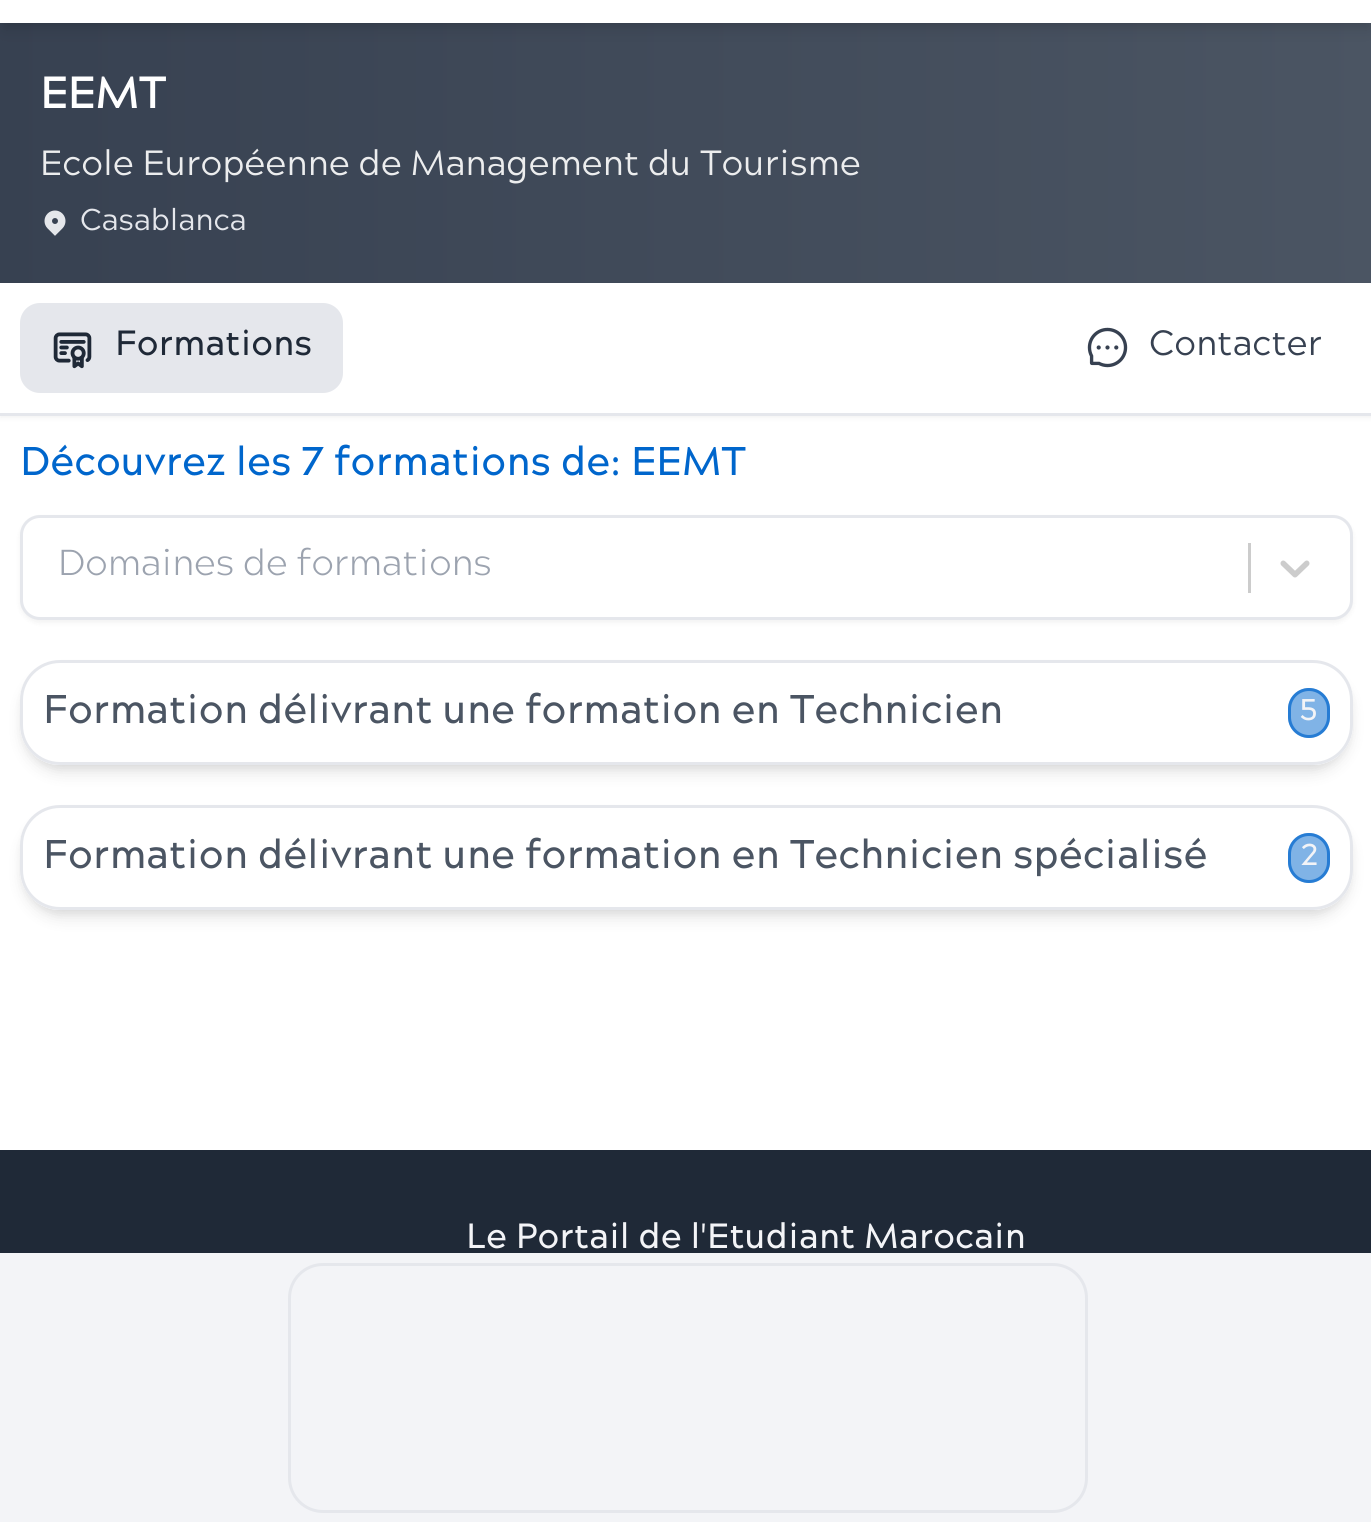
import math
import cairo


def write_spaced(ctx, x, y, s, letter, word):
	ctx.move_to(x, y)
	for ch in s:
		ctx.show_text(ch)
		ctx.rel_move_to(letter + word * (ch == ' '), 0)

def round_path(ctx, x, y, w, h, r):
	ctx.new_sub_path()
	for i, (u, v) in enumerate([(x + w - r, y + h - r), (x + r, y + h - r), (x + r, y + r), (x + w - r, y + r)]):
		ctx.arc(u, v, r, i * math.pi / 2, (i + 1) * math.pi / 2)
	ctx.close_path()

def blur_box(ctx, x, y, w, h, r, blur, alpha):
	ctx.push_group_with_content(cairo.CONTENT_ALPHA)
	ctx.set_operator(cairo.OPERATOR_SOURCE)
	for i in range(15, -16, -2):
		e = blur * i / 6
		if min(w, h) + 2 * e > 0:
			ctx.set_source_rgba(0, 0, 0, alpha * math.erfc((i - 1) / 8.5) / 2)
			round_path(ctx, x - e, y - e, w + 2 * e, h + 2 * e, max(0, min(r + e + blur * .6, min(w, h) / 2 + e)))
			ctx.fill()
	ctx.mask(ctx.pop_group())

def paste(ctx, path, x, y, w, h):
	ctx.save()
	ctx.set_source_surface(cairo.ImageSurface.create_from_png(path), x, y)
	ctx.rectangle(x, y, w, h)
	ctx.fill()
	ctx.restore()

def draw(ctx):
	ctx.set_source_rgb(1, 1, 1)
	ctx.paint()
	gradient = cairo.LinearGradient(0, 153, 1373, 152)
	gradient.add_color_stop_rgba(0, 0.216, 0.255, 0.318, 1)
	gradient.add_color_stop_rgba(1, 0.294, 0.333, 0.388, 1)
	ctx.set_source(gradient)
	ctx.rectangle(0, 23, 1371, 260)
	ctx.fill()
	ctx.set_source_rgb(0, 0, 0)
	blur_box(ctx, 5, -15, 1363, 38, 0, 5, 0.1)
	blur_box(ctx, 3, -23, 1367, 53, 0, 7.5, 0.1)
	ctx.set_source_rgb(1, 1, 1)
	ctx.rectangle(0, 0, 1371, 23)
	ctx.fill()
	ctx.select_font_face('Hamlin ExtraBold')
	ctx.set_font_size(45)
	write_spaced(ctx, 40, 108, 'EEMT', -1, 0)
	ctx.select_font_face('Hamlin')
	ctx.set_font_size(35)
	ctx.set_source_rgb(0.925, 0.929, 0.933)
	ctx.move_to(40, 175)
	ctx.show_text('Ecole Européenne de Management du Tourisme')
	paste(ctx, 'media/1.png', 44, 210, 22, 26)
	ctx.set_font_size(30)
	ctx.set_source_rgb(0.898, 0.906, 0.922)
	ctx.move_to(80, 230)
	ctx.show_text('Casablanca')
	ctx.set_source_rgb(0, 0, 0)
	blur_box(ctx, 0, 285, 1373, 133, 0, 2.5, 0.05)
	ctx.set_source_rgb(1, 1, 1)
	ctx.rectangle(0, 283, 1371, 130)
	ctx.fill()
	ctx.set_source_rgb(0.898, 0.906, 0.922)
	ctx.rectangle(0, 413, 1371, 3)
	ctx.fill()
	round_path(ctx, 20, 303, 323, 90, 20)
	ctx.fill()
	paste(ctx, 'media/2.png', 53, 332, 39, 37)
	ctx.select_font_face('Hamlin', cairo.FONT_SLANT_NORMAL, cairo.FONT_WEIGHT_BOLD)
	ctx.set_font_size(35)
	ctx.set_source_rgb(0.122, 0.161, 0.216)
	ctx.move_to(115, 355)
	ctx.show_text('Formations')
	paste(ctx, 'media/3.png', 1087, 327, 41, 41)
	ctx.select_font_face('Hamlin')
	ctx.set_source_rgb(0.216, 0.255, 0.318)
	ctx.move_to(1149, 355)
	ctx.show_text('Contacter')
	ctx.select_font_face('Hamlin', cairo.FONT_SLANT_NORMAL, cairo.FONT_WEIGHT_BOLD)
	ctx.set_font_size(40)
	ctx.set_source_rgb(0, 0.4, 0.8)
	ctx.move_to(20, 475)
	ctx.show_text('Découvrez les 7 formations de: EEMT')
	ctx.set_source_rgb(0, 0, 0)
	blur_box(ctx, 20, 518, 1333, 105, 20, 2.5, 0.05)
	ctx.set_source_rgb(1, 1, 1)
	round_path(ctx, 21.5, 516.5, 1330, 102, 18.5)
	ctx.fill_preserve()
	ctx.set_source_rgb(0.898, 0.906, 0.922)
	ctx.set_line_width(3)
	ctx.stroke()
	ctx.select_font_face('Hamlin Light')
	ctx.set_font_size(36)
	ctx.set_source_rgb(0.612, 0.639, 0.686)
	ctx.move_to(58, 575)
	ctx.show_text('Domaines de formations')
	ctx.set_source_rgb(0.8, 0.8, 0.8)
	ctx.rectangle(1248, 543, 3, 50)
	ctx.fill()
	paste(ctx, 'media/4.png', 1280, 560, 30, 18)
	ctx.save()
	ctx.set_fill_rule(cairo.FILL_RULE_EVEN_ODD)
	ctx.new_path()
	ctx.move_to(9, 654)
	ctx.line_to(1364, 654)
	ctx.line_to(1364, 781)
	ctx.line_to(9, 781)
	ctx.close_path()
	ctx.move_to(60, 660)
	ctx.line_to(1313, 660)
	ctx.curve_to(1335, 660, 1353, 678, 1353, 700)
	ctx.line_to(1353, 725)
	ctx.curve_to(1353, 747, 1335, 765, 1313, 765)
	ctx.line_to(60, 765)
	ctx.curve_to(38, 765, 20, 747, 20, 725)
	ctx.line_to(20, 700)
	ctx.curve_to(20, 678, 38, 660, 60, 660)
	ctx.close_path()
	ctx.clip()
	ctx.set_source_rgb(0, 0, 0)
	blur_box(ctx, 25, 670, 1323, 95, 35, 5, 0.1)
	ctx.restore()
	ctx.save()
	ctx.set_fill_rule(cairo.FILL_RULE_EVEN_ODD)
	ctx.new_path()
	ctx.move_to(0, 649)
	ctx.line_to(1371, 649)
	ctx.line_to(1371, 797)
	ctx.line_to(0, 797)
	ctx.close_path()
	ctx.move_to(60, 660)
	ctx.line_to(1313, 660)
	ctx.curve_to(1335, 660, 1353, 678, 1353, 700)
	ctx.line_to(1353, 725)
	ctx.curve_to(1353, 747, 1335, 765, 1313, 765)
	ctx.line_to(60, 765)
	ctx.curve_to(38, 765, 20, 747, 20, 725)
	ctx.line_to(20, 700)
	ctx.curve_to(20, 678, 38, 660, 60, 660)
	ctx.close_path()
	ctx.clip()
	ctx.set_source_rgb(0, 0, 0)
	blur_box(ctx, 23, 673, 1327, 100, 38, 7.5, 0.1)
	ctx.restore()
	round_path(ctx, 21.5, 661.5, 1330, 102, 38.5)
	ctx.set_source_rgb(0.898, 0.906, 0.922)
	ctx.stroke()
	ctx.select_font_face('Hamlin', cairo.FONT_SLANT_NORMAL, cairo.FONT_WEIGHT_BOLD)
	ctx.set_font_size(40)
	ctx.set_source_rgb(0.294, 0.333, 0.388)
	ctx.move_to(43, 723)
	ctx.show_text('Formation délivrant une formation en Technicien')
	ctx.set_source_rgb(0.502, 0.702, 0.902)
	round_path(ctx, 1288, 688, 42, 50, 21)
	ctx.fill()
	round_path(ctx, 1289.5, 689.5, 39, 47, 19.5)
	ctx.set_source_rgba(0, 0.4, 0.8, 0.7)
	ctx.stroke()
	ctx.set_font_size(30)
	ctx.set_source_rgb(0.953, 0.957, 0.965)
	ctx.move_to(1300, 720)
	ctx.show_text('5')
	ctx.save()
	ctx.set_fill_rule(cairo.FILL_RULE_EVEN_ODD)
	ctx.new_path()
	ctx.move_to(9, 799)
	ctx.line_to(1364, 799)
	ctx.line_to(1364, 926)
	ctx.line_to(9, 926)
	ctx.close_path()
	ctx.move_to(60, 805)
	ctx.line_to(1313, 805)
	ctx.curve_to(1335, 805, 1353, 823, 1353, 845)
	ctx.line_to(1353, 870)
	ctx.curve_to(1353, 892, 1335, 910, 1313, 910)
	ctx.line_to(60, 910)
	ctx.curve_to(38, 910, 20, 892, 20, 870)
	ctx.line_to(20, 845)
	ctx.curve_to(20, 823, 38, 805, 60, 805)
	ctx.close_path()
	ctx.clip()
	ctx.set_source_rgb(0, 0, 0)
	blur_box(ctx, 25, 815, 1323, 95, 35, 5, 0.1)
	ctx.restore()
	ctx.save()
	ctx.set_fill_rule(cairo.FILL_RULE_EVEN_ODD)
	ctx.new_path()
	ctx.move_to(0, 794)
	ctx.line_to(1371, 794)
	ctx.line_to(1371, 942)
	ctx.line_to(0, 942)
	ctx.close_path()
	ctx.move_to(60, 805)
	ctx.line_to(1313, 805)
	ctx.curve_to(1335, 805, 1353, 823, 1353, 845)
	ctx.line_to(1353, 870)
	ctx.curve_to(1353, 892, 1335, 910, 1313, 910)
	ctx.line_to(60, 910)
	ctx.curve_to(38, 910, 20, 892, 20, 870)
	ctx.line_to(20, 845)
	ctx.curve_to(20, 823, 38, 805, 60, 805)
	ctx.close_path()
	ctx.clip()
	ctx.set_source_rgb(0, 0, 0)
	blur_box(ctx, 23, 818, 1327, 100, 38, 7.5, 0.1)
	ctx.restore()
	round_path(ctx, 21.5, 806.5, 1330, 102, 38.5)
	ctx.set_source_rgb(0.898, 0.906, 0.922)
	ctx.stroke()
	ctx.set_font_size(40)
	ctx.set_source_rgb(0.294, 0.333, 0.388)
	ctx.move_to(43, 868)
	ctx.show_text('Formation délivrant une formation en Technicien spécialisé')
	ctx.set_source_rgb(0.502, 0.702, 0.902)
	round_path(ctx, 1288, 833, 42, 50, 21)
	ctx.fill()
	round_path(ctx, 1289.5, 834.5, 39, 47, 19.5)
	ctx.set_source_rgba(0, 0.4, 0.8, 0.7)
	ctx.stroke()
	ctx.set_font_size(30)
	ctx.set_source_rgb(0.953, 0.957, 0.965)
	ctx.move_to(1301, 865)
	ctx.show_text('2')
	ctx.rectangle(0, 1253, 1371, 269)
	ctx.fill()
	round_path(ctx, 289.5, 1264.5, 797, 247, 33.5)
	ctx.set_source_rgb(0.898, 0.906, 0.922)
	ctx.stroke()
	ctx.set_source_rgb(0.122, 0.161, 0.216)
	ctx.rectangle(0, 1150, 1371, 103)
	ctx.fill()
	ctx.set_font_size(35)
	ctx.set_source_rgb(0.953, 0.957, 0.965)
	ctx.move_to(466, 1248)
	ctx.show_text('Le Portail de l\'Etudiant Marocain')


surface = cairo.ImageSurface(cairo.FORMAT_RGB24, 1371, 1522)
ctx = cairo.Context(surface)
options = cairo.FontOptions()
options.set_hint_metrics(cairo.HINT_METRICS_OFF)
options.set_hint_style(cairo.HINT_STYLE_NONE)
ctx.set_font_options(options)
ctx.set_miter_limit(4)
draw(ctx)
surface.write_to_png('image.png')
